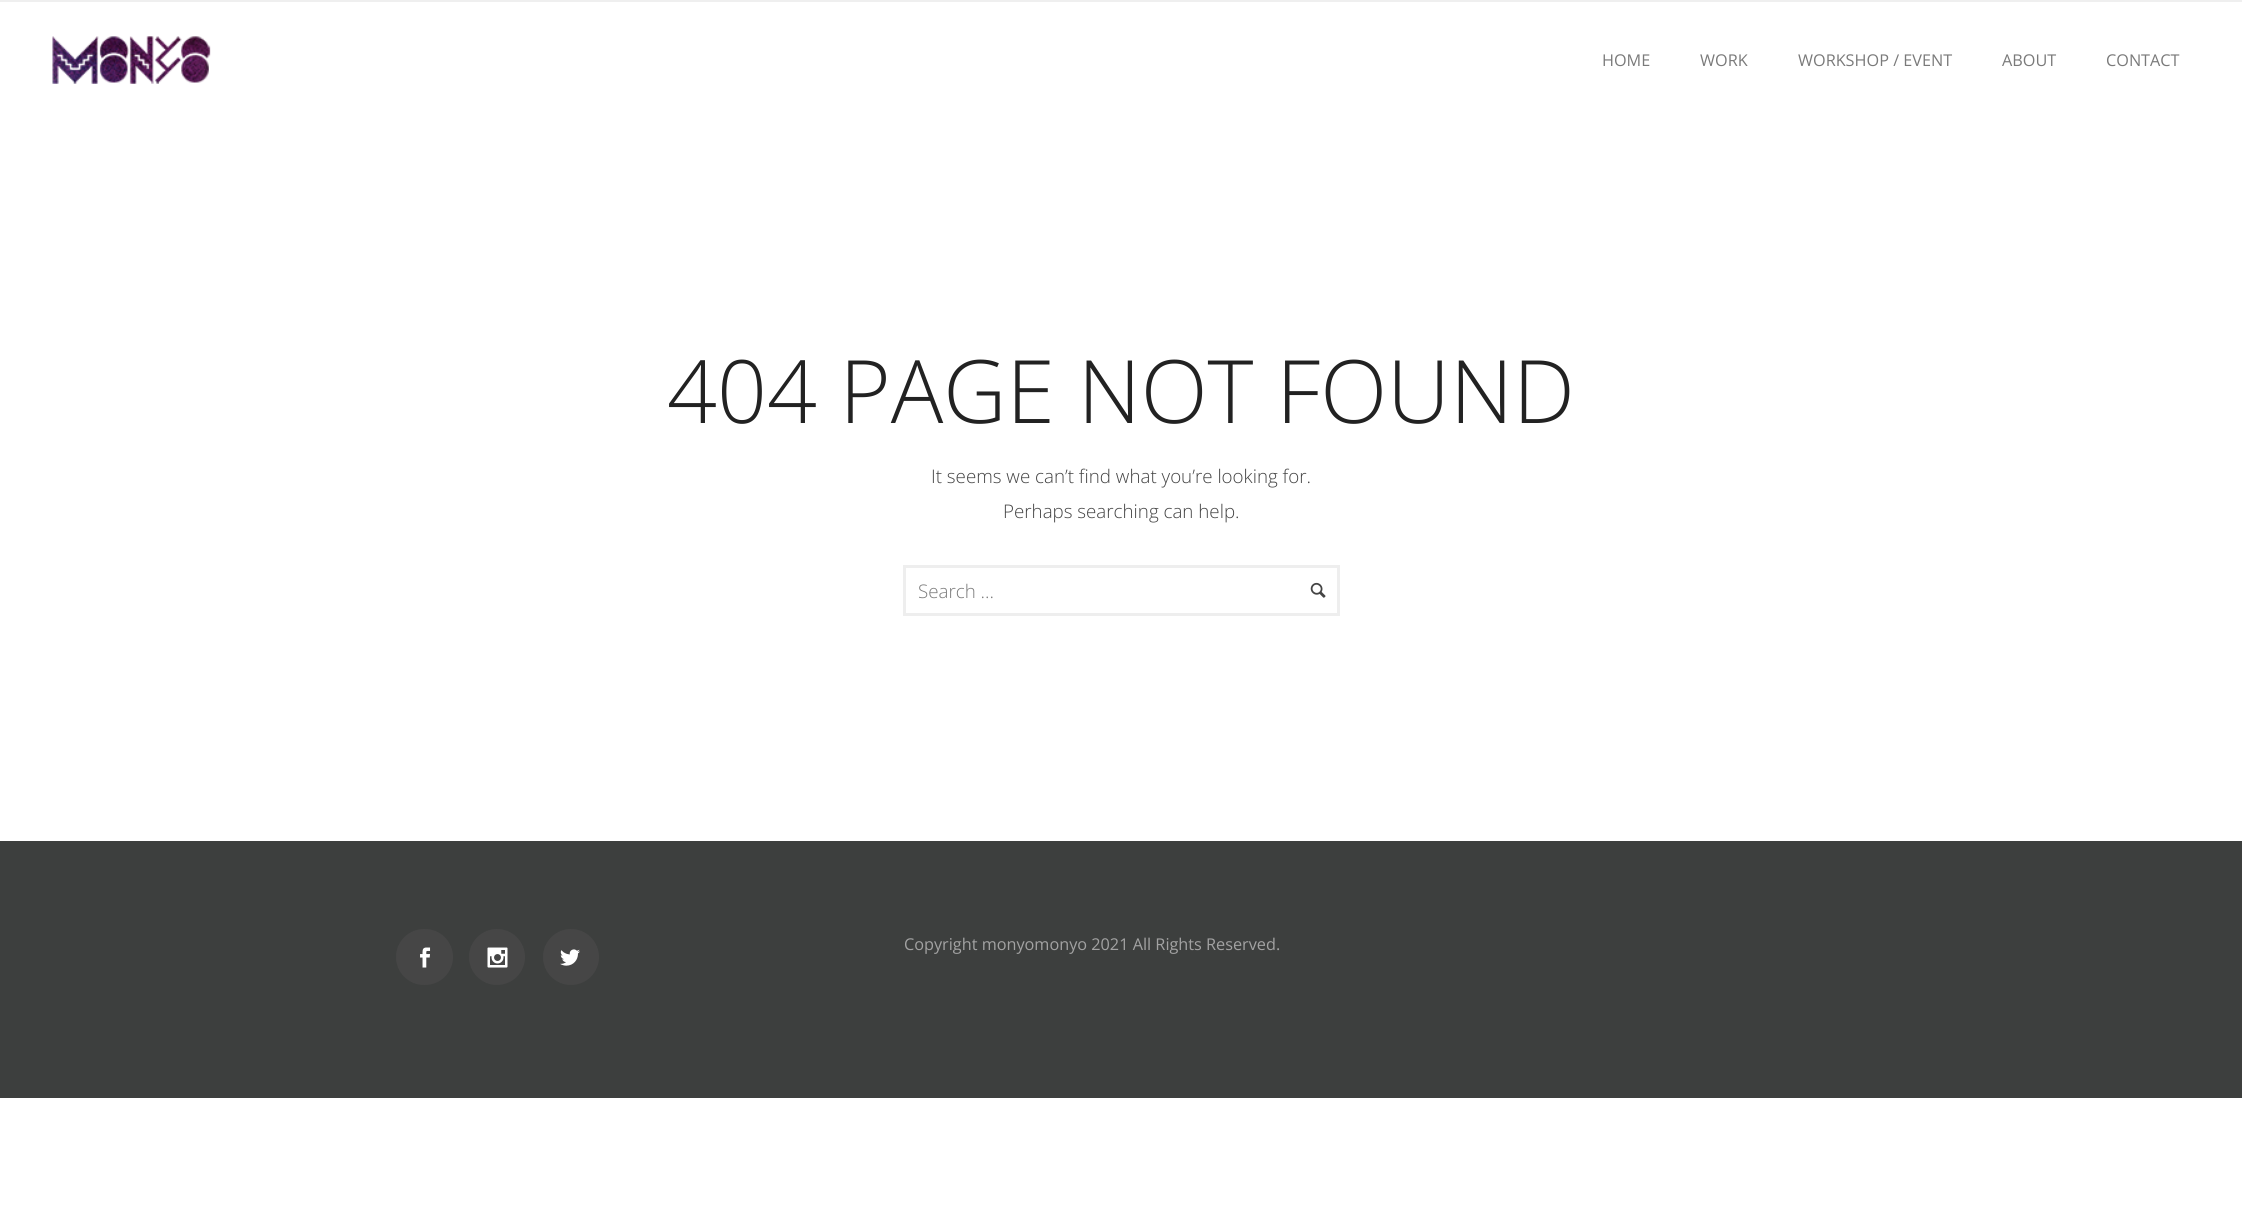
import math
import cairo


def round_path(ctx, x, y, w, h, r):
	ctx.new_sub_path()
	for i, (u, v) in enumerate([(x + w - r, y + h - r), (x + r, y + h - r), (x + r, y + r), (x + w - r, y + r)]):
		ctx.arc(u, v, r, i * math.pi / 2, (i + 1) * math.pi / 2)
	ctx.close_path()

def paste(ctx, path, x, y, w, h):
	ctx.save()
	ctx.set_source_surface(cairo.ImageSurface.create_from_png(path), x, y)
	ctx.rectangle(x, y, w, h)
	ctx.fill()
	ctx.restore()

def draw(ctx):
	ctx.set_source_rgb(1, 1, 1)
	ctx.paint()
	paste(ctx, 'media/1.png', 52, 36, 159, 48)
	ctx.set_source_rgb(0.937, 0.937, 0.937)
	ctx.rectangle(0, 0, 2242, 2)
	ctx.fill()
	ctx.select_font_face('Open Sans')
	ctx.set_font_size(16.25)
	ctx.set_source_rgb(0.478, 0.478, 0.478)
	for x, y, s in [
		(1602, 66, 'HOME'),
		(1700, 66, 'WORK'),
		(1798, 66, 'WORKSHOP / EVENT'),
		(2002, 66, 'ABOUT'),
		(2106, 66, 'CONTACT'),
	]:
		ctx.move_to(x, y)
		ctx.show_text(s)
	ctx.select_font_face('Open Sans Light')
	ctx.set_font_size(87.5)
	ctx.set_source_rgb(0.133, 0.133, 0.133)
	ctx.move_to(667, 423)
	ctx.show_text('404 PAGE NOT FOUND')
	ctx.set_font_size(18.75)
	ctx.set_source_rgb(0.267, 0.267, 0.267)
	ctx.move_to(931, 483)
	ctx.show_text('It seems we can’t find what you’re looking for.')
	ctx.move_to(1003, 518)
	ctx.show_text('Perhaps searching can help.')
	ctx.rectangle(904.5, 566.5, 434, 48)
	ctx.set_source_rgb(0.933, 0.933, 0.933)
	ctx.set_line_width(3)
	ctx.stroke()
	ctx.set_source_rgb(0.478, 0.478, 0.478)
	ctx.move_to(918, 598)
	ctx.show_text('Search ...')
	paste(ctx, 'media/2.png', 1310, 582, 16, 16)
	ctx.set_source_rgb(0.239, 0.247, 0.243)
	ctx.rectangle(0, 841, 2242, 257)
	ctx.fill()
	ctx.set_source_rgb(0.275, 0.275, 0.275)
	round_path(ctx, 396, 929, 57, 56, 28)
	ctx.fill()
	paste(ctx, 'media/3.png', 420, 947, 11, 21)
	ctx.arc(497, 957, 28, 0, 2 * math.pi)
	ctx.fill()
	paste(ctx, 'media/4.png', 487, 947, 21, 21)
	ctx.arc(571, 957, 28, 0, 2 * math.pi)
	ctx.fill()
	paste(ctx, 'media/5.png', 560, 949, 20, 17)
	ctx.select_font_face('Open Sans')
	ctx.set_font_size(16.25)
	ctx.set_source_rgb(0.635, 0.635, 0.635)
	ctx.move_to(904, 950)
	ctx.show_text('Copyright monyomonyo 2021 All Rights Reserved.')


surface = cairo.ImageSurface(cairo.FORMAT_RGB24, 2242, 1219)
ctx = cairo.Context(surface)
options = cairo.FontOptions()
options.set_hint_metrics(cairo.HINT_METRICS_OFF)
options.set_hint_style(cairo.HINT_STYLE_NONE)
ctx.set_font_options(options)
ctx.set_miter_limit(4)
draw(ctx)
surface.write_to_png('image.png')
